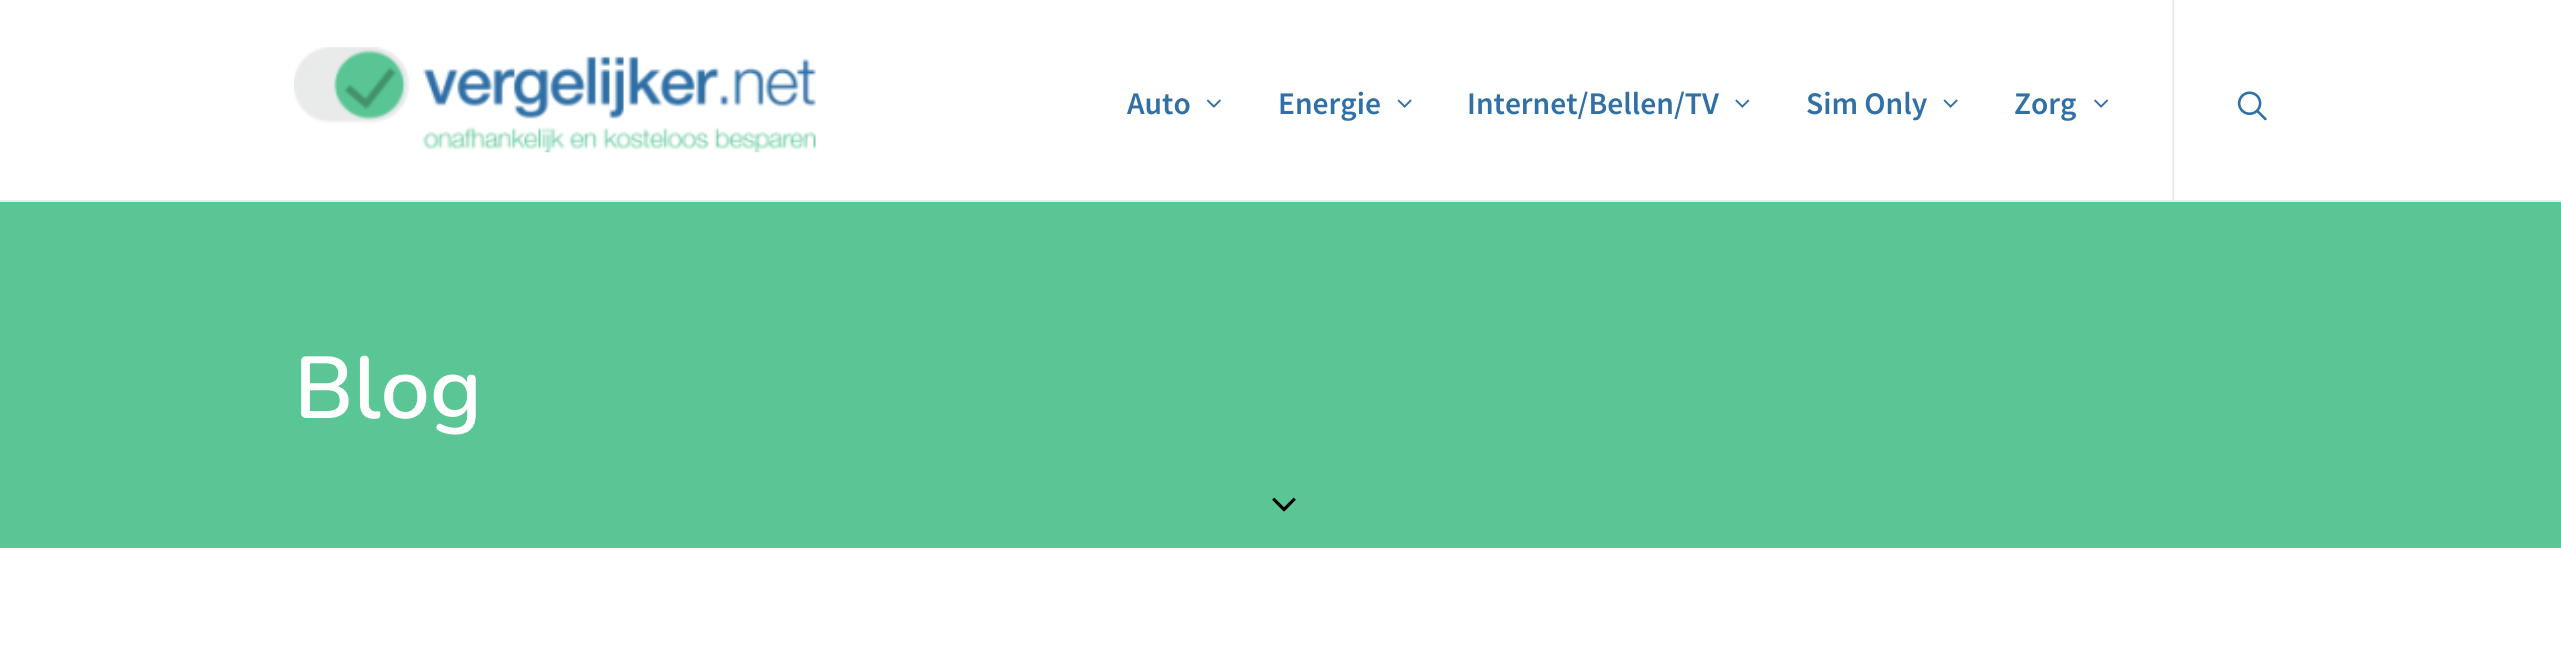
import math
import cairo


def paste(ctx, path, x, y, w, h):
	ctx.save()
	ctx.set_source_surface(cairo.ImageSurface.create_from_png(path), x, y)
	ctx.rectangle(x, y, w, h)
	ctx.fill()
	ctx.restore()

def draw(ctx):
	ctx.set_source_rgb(0.353, 0.776, 0.584)
	ctx.paint()
	ctx.set_source_rgb(1, 1, 1)
	ctx.rectangle(0, 0, 2561, 200)
	ctx.fill()
	ctx.set_source_rgb(0.918, 0.918, 0.918)
	ctx.rectangle(0, 200, 2561, 2)
	ctx.fill()
	paste(ctx, 'media/1.png', 294, 47, 522, 106)
	ctx.select_font_face('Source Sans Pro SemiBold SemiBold')
	ctx.set_font_size(31.5)
	ctx.set_source_rgb(0.188, 0.439, 0.651)
	ctx.move_to(1127, 114)
	ctx.show_text('Auto')
	paste(ctx, 'media/2.png', 1206, 99, 15, 9)
	ctx.move_to(1278, 114)
	ctx.show_text('Energie')
	paste(ctx, 'media/3.png', 1397, 99, 15, 9)
	ctx.move_to(1467, 114)
	ctx.show_text('Internet/Bellen/TV')
	paste(ctx, 'media/4.png', 1735, 99, 15, 9)
	ctx.move_to(1806, 114)
	ctx.show_text('Sim Only')
	paste(ctx, 'media/3.png', 1943, 99, 15, 9)
	ctx.move_to(2014, 114)
	ctx.show_text('Zorg')
	paste(ctx, 'media/5.png', 2094, 99, 15, 9)
	ctx.set_source_rgb(0.918, 0.918, 0.918)
	ctx.rectangle(2172, 0, 2, 200)
	ctx.fill()
	paste(ctx, 'media/6.png', 2237, 91, 30, 30)
	ctx.select_font_face('Nunito SemiBold')
	ctx.set_font_size(87.5)
	ctx.set_source_rgb(1, 1, 1)
	ctx.move_to(294, 418)
	ctx.show_text('Blog')
	paste(ctx, 'media/7.png', 1272, 497, 24, 15)
	ctx.rectangle(0, 548, 2561, 115)
	ctx.fill()


surface = cairo.ImageSurface(cairo.FORMAT_RGB24, 2561, 663)
ctx = cairo.Context(surface)
options = cairo.FontOptions()
options.set_hint_metrics(cairo.HINT_METRICS_OFF)
options.set_hint_style(cairo.HINT_STYLE_NONE)
ctx.set_font_options(options)
ctx.set_miter_limit(4)
draw(ctx)
surface.write_to_png('image.png')
